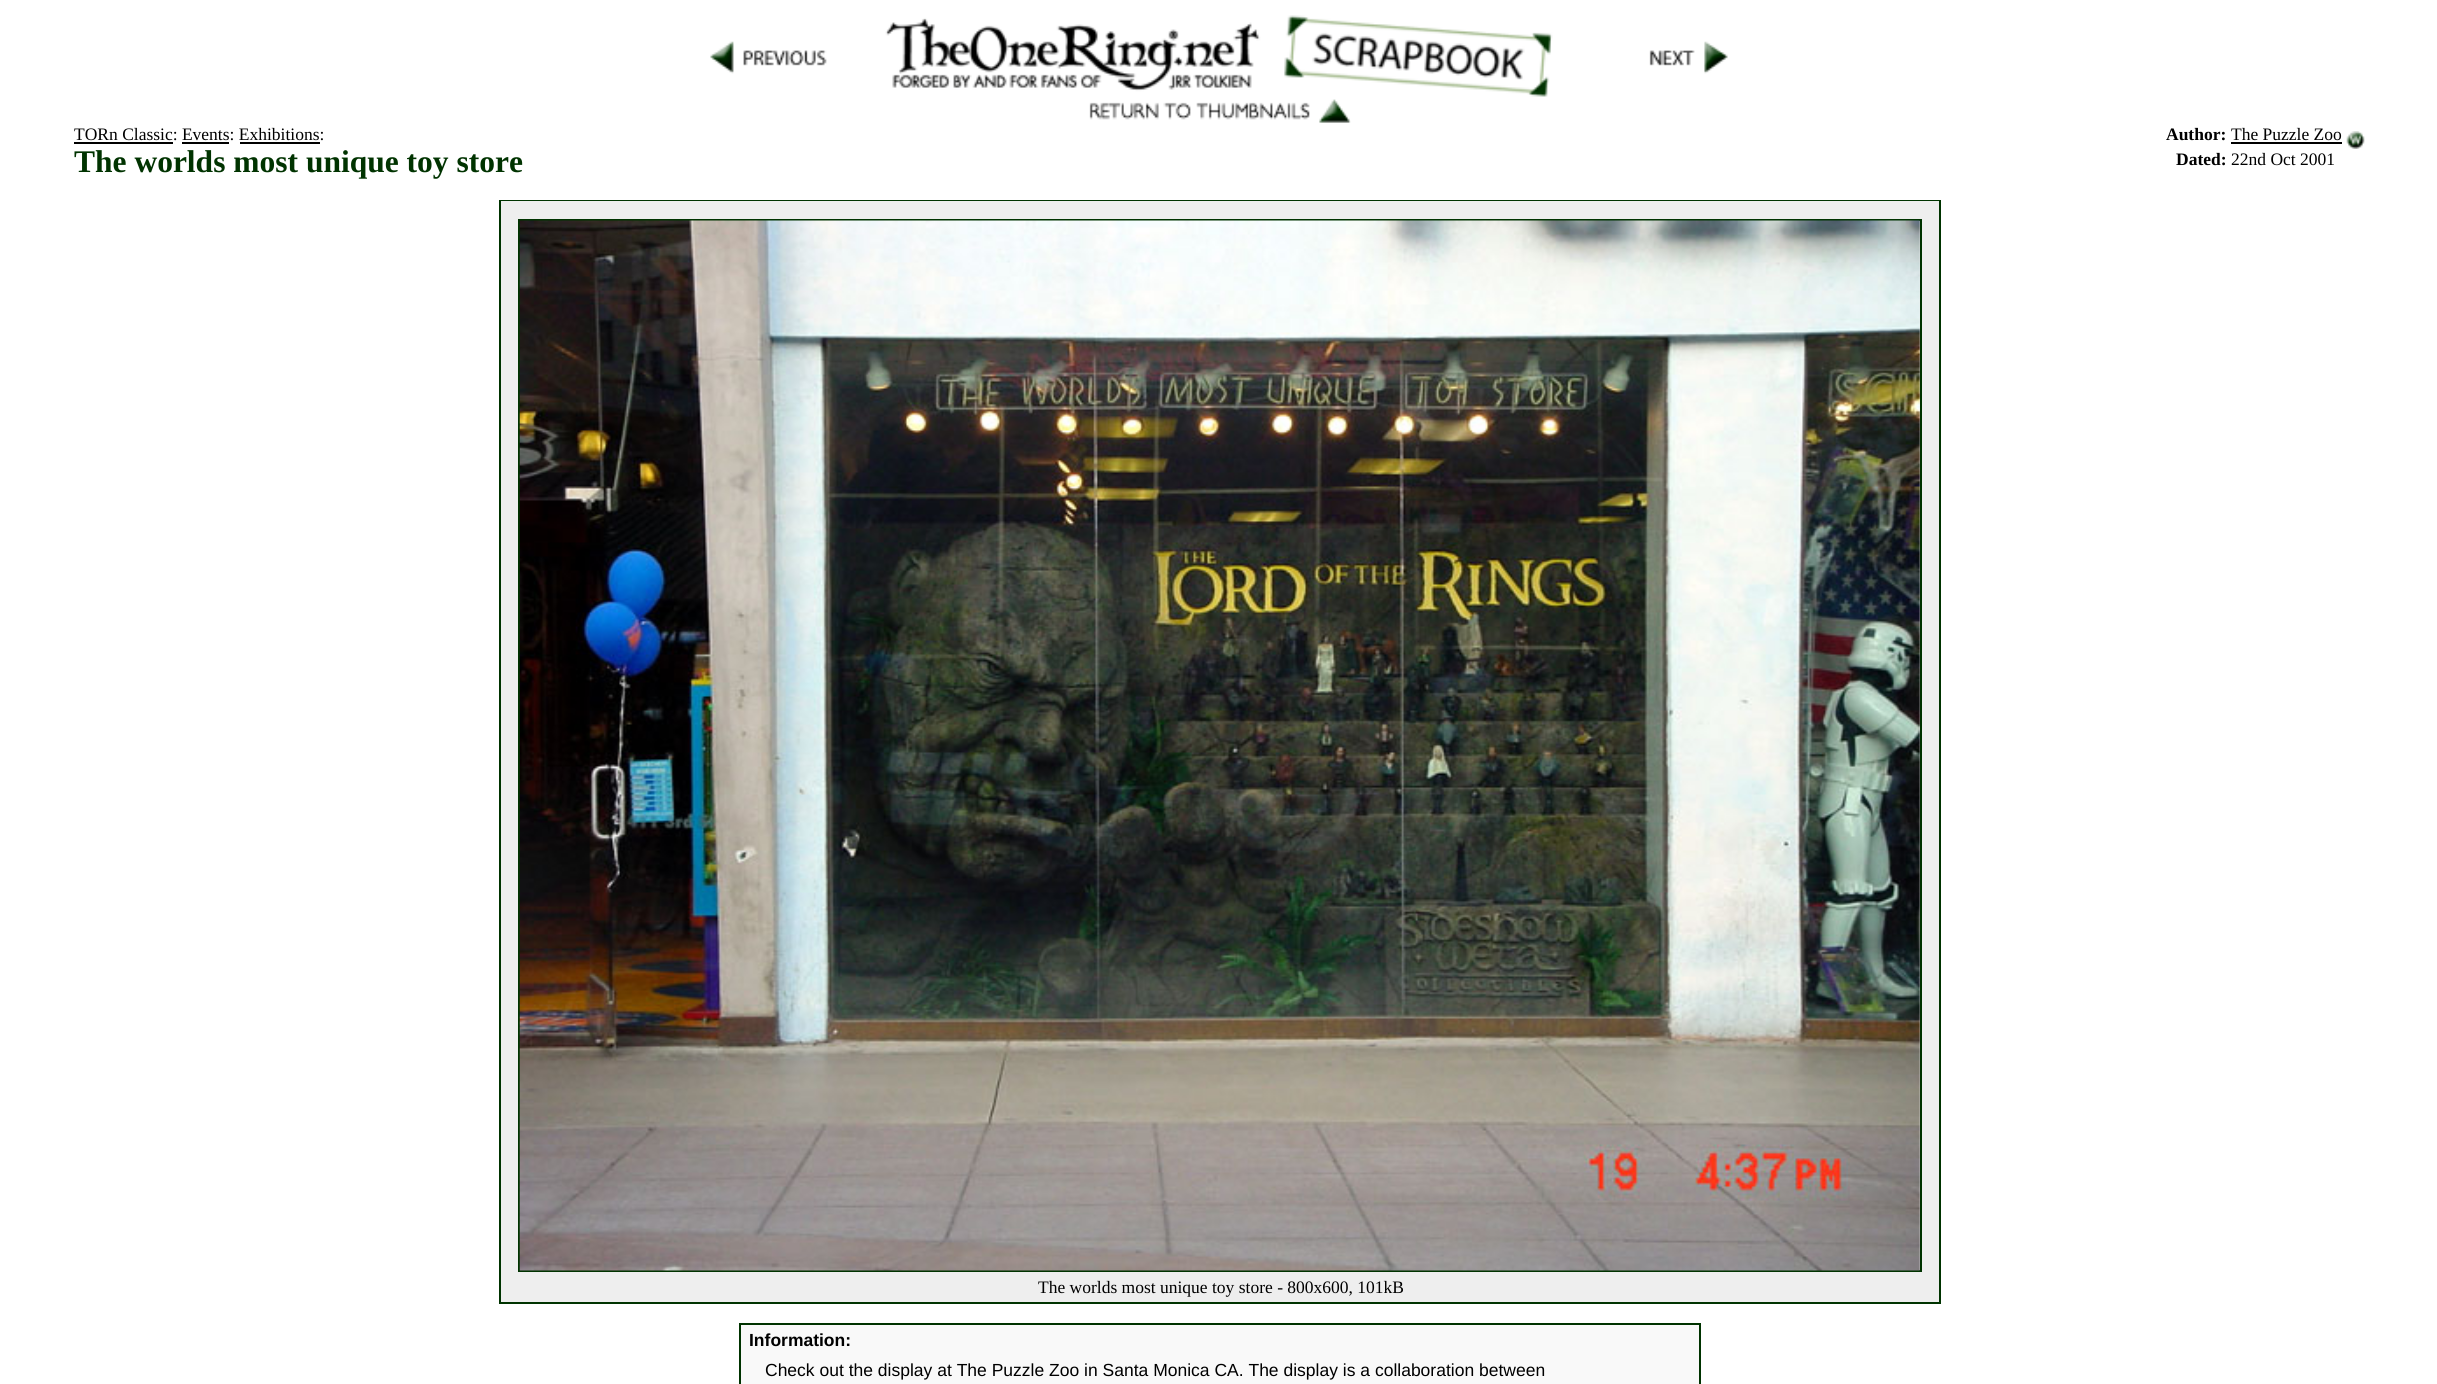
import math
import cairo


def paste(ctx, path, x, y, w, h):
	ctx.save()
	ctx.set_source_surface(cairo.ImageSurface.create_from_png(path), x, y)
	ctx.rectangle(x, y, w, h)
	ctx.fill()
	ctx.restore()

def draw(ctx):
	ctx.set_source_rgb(1, 1, 1)
	ctx.paint()
	paste(ctx, 'media/1.png', 710, 41, 117, 33)
	paste(ctx, 'media/2.png', 885, 15, 668, 82)
	paste(ctx, 'media/3.png', 1649, 41, 79, 33)
	paste(ctx, 'media/4.png', 1089, 99, 262, 24)
	ctx.select_font_face('Liberation Serif')
	ctx.set_font_size(17.5)
	ctx.set_source_rgb(0, 0, 0)
	ctx.move_to(74, 140)
	ctx.show_text('TORn Classic: Events: Exhibitions:')
	ctx.rectangle(74, 142, 99, 2)
	ctx.rectangle(182, 142, 47, 2)
	ctx.rectangle(240, 142, 80, 2)
	ctx.fill()
	ctx.select_font_face('Liberation Serif', cairo.FONT_SLANT_NORMAL, cairo.FONT_WEIGHT_BOLD)
	ctx.set_font_size(31.5)
	ctx.set_source_rgb(0, 0.2, 0)
	ctx.move_to(74, 172)
	ctx.show_text('The worlds most unique toy store')
	ctx.set_font_size(17.5)
	ctx.set_source_rgb(0, 0, 0)
	ctx.move_to(2166, 140)
	ctx.show_text('Author:')
	ctx.select_font_face('Liberation Serif')
	ctx.move_to(2231, 140)
	ctx.show_text('The Puzzle Zoo')
	ctx.rectangle(2231, 142, 111, 2)
	ctx.fill()
	paste(ctx, 'media/5.png', 2346, 131, 19, 18)
	ctx.select_font_face('Liberation Serif', cairo.FONT_SLANT_NORMAL, cairo.FONT_WEIGHT_BOLD)
	ctx.move_to(2176, 165)
	ctx.show_text('Dated:')
	ctx.select_font_face('Liberation Serif')
	ctx.move_to(2231, 165)
	ctx.show_text('22nd Oct 2001')
	ctx.rectangle(500, 201, 1440, 1102)
	ctx.set_source_rgb(0, 0.2, 0)
	ctx.stroke()
	ctx.set_source_rgb(0.933, 0.933, 0.933)
	ctx.rectangle(501, 201, 1438, 1101)
	ctx.fill()
	ctx.rectangle(519, 220, 1402, 1051)
	ctx.set_source_rgb(0, 0.2, 0)
	ctx.stroke()
	paste(ctx, 'media/6.png', 519, 220, 1401, 1051)
	ctx.set_source_rgb(0, 0, 0)
	ctx.move_to(1038, 1293)
	ctx.show_text('The worlds most unique toy store - 800x600, 101kB')
	ctx.set_source_rgb(0.973, 0.973, 0.973)
	ctx.rectangle(740, 1324, 960, 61)
	ctx.fill_preserve()
	ctx.set_source_rgb(0, 0.2, 0)
	ctx.stroke()
	ctx.select_font_face('Liberation Sans', cairo.FONT_SLANT_NORMAL, cairo.FONT_WEIGHT_BOLD)
	ctx.set_source_rgb(0, 0, 0)
	ctx.move_to(749, 1346)
	ctx.show_text('Information:')
	ctx.select_font_face('Liberation Sans')
	ctx.move_to(765, 1376)
	ctx.show_text('Check out the display at The Puzzle Zoo in Santa Monica CA. The display is a collaboration between')


surface = cairo.ImageSurface(cairo.FORMAT_RGB24, 2437, 1384)
ctx = cairo.Context(surface)
options = cairo.FontOptions()
options.set_hint_metrics(cairo.HINT_METRICS_OFF)
options.set_hint_style(cairo.HINT_STYLE_NONE)
ctx.set_font_options(options)
ctx.set_miter_limit(4)
draw(ctx)
surface.write_to_png('image.png')
